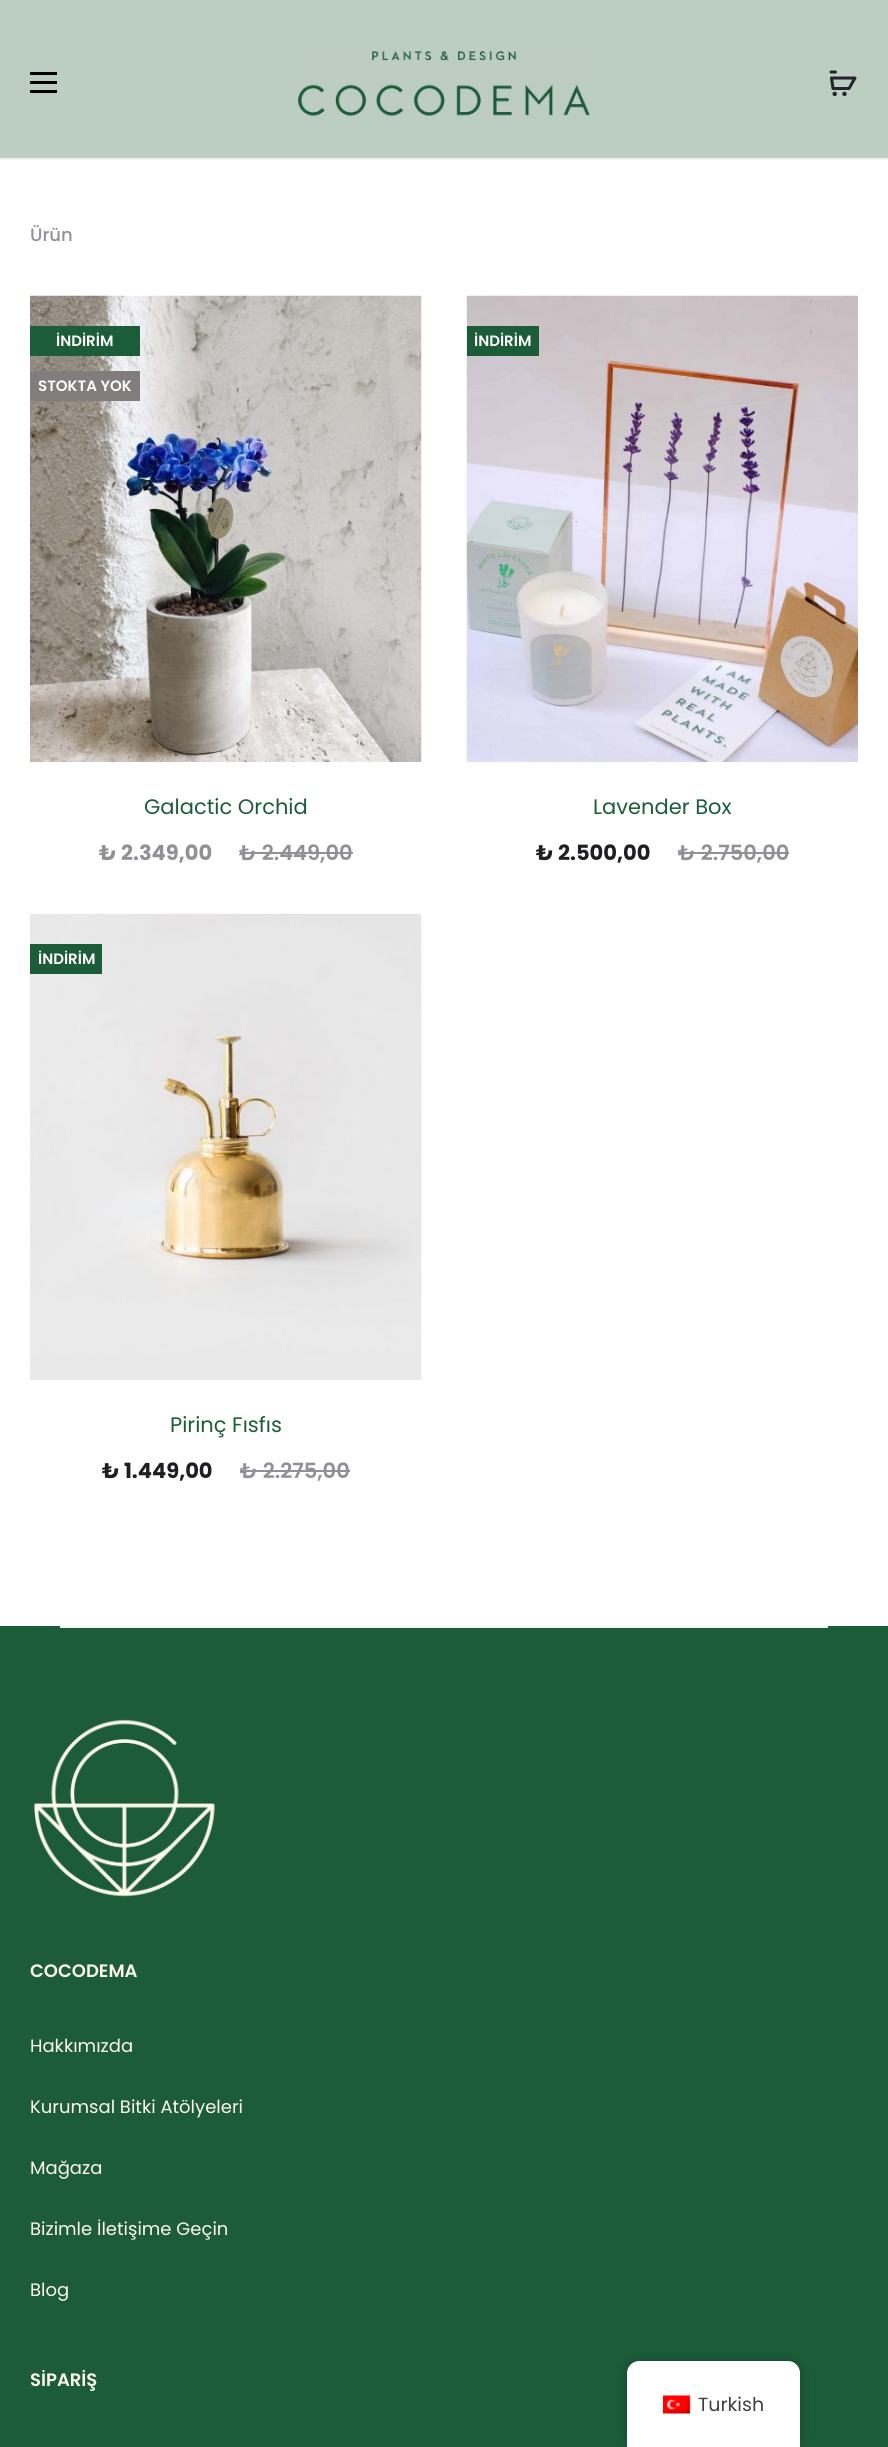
import math
import cairo


def round_path(ctx, x, y, w, h, r):
	ctx.new_sub_path()
	for i, (u, v) in enumerate([(x + w - r, y + h - r), (x + r, y + h - r), (x + r, y + r), (x + w - r, y + r)]):
		ctx.arc(u, v, r, i * math.pi / 2, (i + 1) * math.pi / 2)
	ctx.close_path()

def blur_box(ctx, x, y, w, h, r, blur, alpha):
	ctx.push_group_with_content(cairo.CONTENT_ALPHA)
	ctx.set_operator(cairo.OPERATOR_SOURCE)
	for i in range(15, -16, -2):
		e = blur * i / 6
		if min(w, h) + 2 * e > 0:
			ctx.set_source_rgba(0, 0, 0, alpha * math.erfc((i - 1) / 8.5) / 2)
			round_path(ctx, x - e, y - e, w + 2 * e, h + 2 * e, max(0, min(r + e + blur * .6, min(w, h) / 2 + e)))
			ctx.fill()
	ctx.mask(ctx.pop_group())

def paste(ctx, path, x, y, w, h):
	ctx.save()
	ctx.set_source_surface(cairo.ImageSurface.create_from_png(path), x, y)
	ctx.rectangle(x, y, w, h)
	ctx.fill()
	ctx.restore()

def draw(ctx):
	ctx.set_source_rgb(1, 1, 1)
	ctx.paint()
	ctx.set_source_rgb(0.737, 0.808, 0.761)
	ctx.rectangle(0, 0, 888, 158)
	ctx.fill()
	ctx.set_source_rgb(0.945, 0.949, 0.957)
	ctx.rectangle(0, 158, 888, 2)
	ctx.fill()
	ctx.set_source_rgb(0, 0, 0)
	ctx.rectangle(30, 81, 27, 3)
	ctx.rectangle(30, 72, 27, 3)
	ctx.rectangle(30, 90, 27, 3)
	ctx.fill()
	paste(ctx, 'media/1.png', 298, 51, 292, 67)
	ctx.new_path()
	ctx.move_to(831.5, 78)
	ctx.line_to(833, 88.5)
	ctx.line_to(849, 88.5)
	ctx.line_to(855, 78)
	ctx.close_path()
	ctx.set_source_rgb(0.137, 0.137, 0.173)
	ctx.set_line_width(3)
	ctx.set_line_join(cairo.LINE_JOIN_ROUND)
	ctx.stroke()
	ctx.arc(834.7, 93.9, 2.2, 0, 2 * math.pi)
	ctx.fill()
	ctx.arc(844.5, 93.9, 2.2, 0, 2 * math.pi)
	ctx.fill()
	ctx.new_path()
	ctx.move_to(831, 72)
	ctx.line_to(835.5, 72)
	ctx.set_line_cap(cairo.LINE_CAP_ROUND)
	ctx.set_line_join(cairo.LINE_JOIN_MITER)
	ctx.stroke()
	ctx.select_font_face('Poppins Medium')
	ctx.set_font_size(18)
	ctx.set_source_rgb(0.565, 0.565, 0.592)
	ctx.move_to(30, 241)
	ctx.show_text('Ürün')
	paste(ctx, 'media/2.png', 30, 295, 392, 467)
	ctx.set_source_rgb(0.11, 0.361, 0.224)
	ctx.rectangle(30, 326, 110, 30)
	ctx.fill()
	ctx.select_font_face('Poppins SemiBold')
	ctx.set_font_size(15)
	ctx.set_source_rgb(1, 1, 1)
	ctx.move_to(56, 346)
	ctx.show_text('İNDİRİM')
	ctx.set_source_rgb(0.51, 0.49, 0.49)
	ctx.rectangle(30, 371, 110, 30)
	ctx.fill()
	ctx.set_source_rgb(1, 1, 1)
	ctx.move_to(38, 391)
	ctx.show_text('STOKTA YOK')
	ctx.select_font_face('Poppins')
	ctx.set_font_size(21)
	ctx.set_source_rgb(0.11, 0.361, 0.224)
	ctx.move_to(144, 814)
	ctx.show_text('Galactic Orchid')
	ctx.select_font_face('Poppins', cairo.FONT_SLANT_NORMAL, cairo.FONT_WEIGHT_BOLD)
	ctx.set_source_rgb(0.565, 0.565, 0.592)
	ctx.move_to(99, 860)
	ctx.show_text('₺ 2.349,00')
	ctx.select_font_face('Poppins SemiBold')
	ctx.move_to(239, 860)
	ctx.show_text('₺ 2.449,00')
	ctx.rectangle(240, 852, 113, 2)
	ctx.fill()
	paste(ctx, 'media/3.png', 466, 295, 392, 467)
	ctx.set_source_rgb(0.11, 0.361, 0.224)
	ctx.rectangle(467, 326, 72, 30)
	ctx.fill()
	ctx.set_font_size(15)
	ctx.set_source_rgb(1, 1, 1)
	ctx.move_to(474, 346)
	ctx.show_text('İNDİRİM')
	ctx.select_font_face('Poppins')
	ctx.set_font_size(21)
	ctx.set_source_rgb(0.11, 0.361, 0.224)
	ctx.move_to(593, 814)
	ctx.show_text('Lavender Box')
	ctx.select_font_face('Poppins', cairo.FONT_SLANT_NORMAL, cairo.FONT_WEIGHT_BOLD)
	ctx.set_source_rgb(0.118, 0.118, 0.137)
	ctx.move_to(536, 860)
	ctx.show_text('₺ 2.500,00')
	ctx.select_font_face('Poppins SemiBold')
	ctx.set_source_rgb(0.565, 0.565, 0.592)
	ctx.move_to(678, 860)
	ctx.show_text('₺ 2.750,00')
	ctx.rectangle(678, 852, 111, 2)
	ctx.fill()
	paste(ctx, 'media/4.png', 30, 913, 392, 467)
	ctx.set_source_rgb(0.11, 0.361, 0.224)
	ctx.rectangle(30, 944, 72, 30)
	ctx.fill()
	ctx.set_font_size(15)
	ctx.set_source_rgb(1, 1, 1)
	ctx.move_to(38, 964)
	ctx.show_text('İNDİRİM')
	ctx.select_font_face('Poppins')
	ctx.set_font_size(21)
	ctx.set_source_rgb(0.11, 0.361, 0.224)
	ctx.move_to(170, 1432)
	ctx.show_text('Pirinç Fısfıs')
	ctx.select_font_face('Poppins', cairo.FONT_SLANT_NORMAL, cairo.FONT_WEIGHT_BOLD)
	ctx.set_source_rgb(0.118, 0.118, 0.137)
	ctx.move_to(102, 1478)
	ctx.show_text('₺ 1.449,00')
	ctx.select_font_face('Poppins SemiBold')
	ctx.set_source_rgb(0.565, 0.565, 0.592)
	ctx.move_to(240, 1478)
	ctx.show_text('₺ 2.275,00')
	ctx.rectangle(240, 1470, 110, 2)
	ctx.fill()
	ctx.set_source_rgb(0.11, 0.361, 0.224)
	ctx.rectangle(0, 1626, 888, 821)
	ctx.fill()
	ctx.set_source_rgb(0.945, 0.949, 0.957)
	ctx.rectangle(60, 1626, 768, 2)
	ctx.fill()
	paste(ctx, 'media/5.png', 33, 1719, 182, 178)
	ctx.set_font_size(18)
	ctx.set_source_rgb(0.996, 0.984, 0.918)
	ctx.move_to(30, 1977)
	ctx.show_text('COCODEMA')
	ctx.select_font_face('Poppins')
	for x, y, s in [
		(30, 2052, 'Hakkımızda'),
		(30, 2113, 'Kurumsal Bitki Atölyeleri'),
		(30, 2174, 'Mağaza'),
		(30, 2235, 'Bizimle İletişime Geçin'),
		(30, 2296, 'Blog'),
	]:
		ctx.move_to(x, y)
		ctx.show_text(s)
	ctx.select_font_face('Poppins SemiBold')
	ctx.move_to(30, 2386)
	ctx.show_text('SİPARİŞ')
	ctx.set_source_rgb(0, 0, 0)
	blur_box(ctx, 627, 2361, 173, 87, 12, 6, 0.25)
	ctx.set_source_rgb(1, 1, 1)
	ctx.new_path()
	ctx.move_to(639, 2361)
	ctx.line_to(788, 2361)
	ctx.curve_to(794.5, 2361, 800, 2366.5, 800, 2373)
	ctx.line_to(800, 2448)
	ctx.line_to(627, 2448)
	ctx.line_to(627, 2373)
	ctx.curve_to(627, 2366.5, 632.5, 2361, 639, 2361)
	ctx.close_path()
	ctx.fill()
	paste(ctx, 'media/6.png', 663, 2395, 28, 19)
	ctx.select_font_face('Poppins')
	ctx.set_font_size(19)
	ctx.set_source_rgb(0.251, 0.251, 0.251)
	ctx.move_to(698, 2411)
	ctx.show_text('Turkish')


surface = cairo.ImageSurface(cairo.FORMAT_RGB24, 888, 2447)
ctx = cairo.Context(surface)
options = cairo.FontOptions()
options.set_hint_metrics(cairo.HINT_METRICS_OFF)
options.set_hint_style(cairo.HINT_STYLE_NONE)
ctx.set_font_options(options)
ctx.set_miter_limit(4)
draw(ctx)
surface.write_to_png('image.png')
